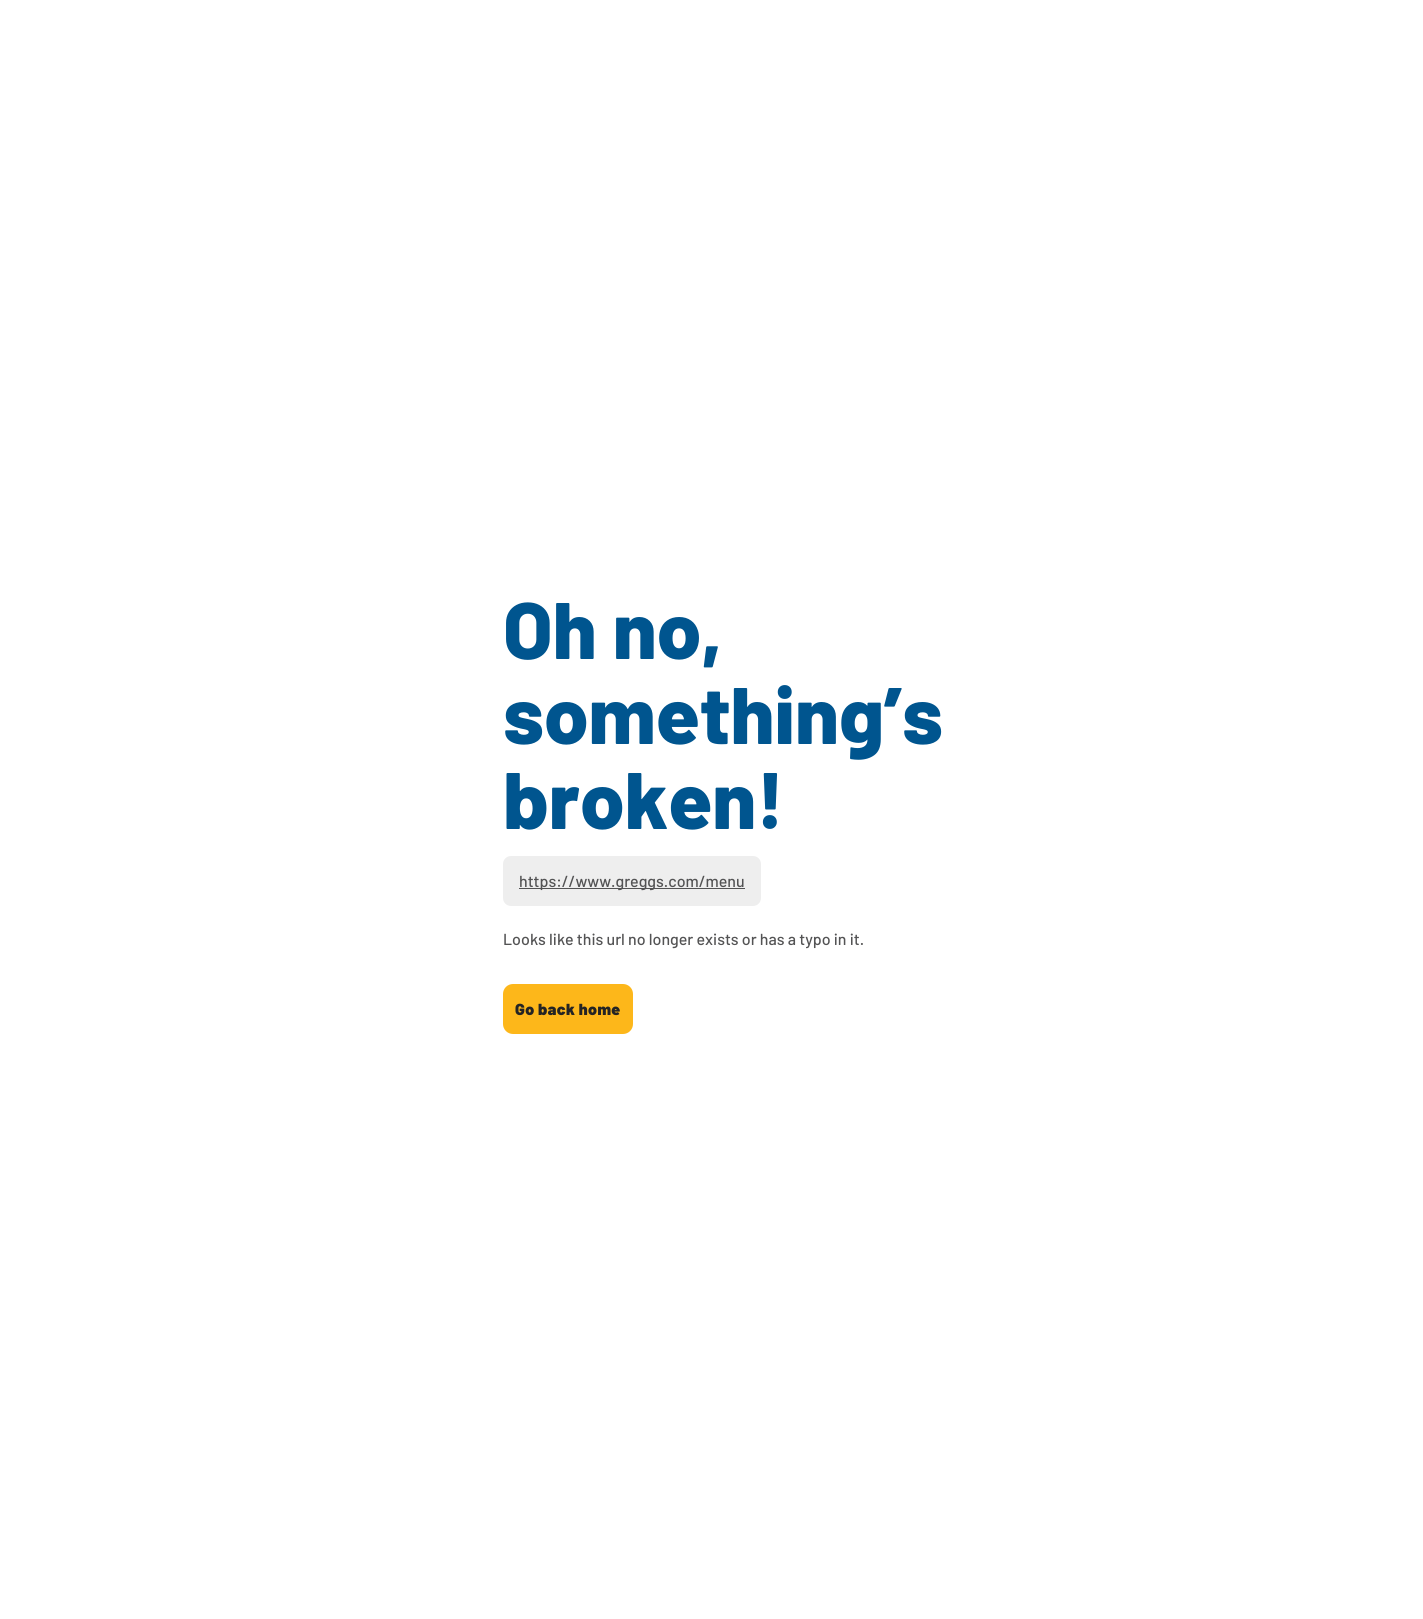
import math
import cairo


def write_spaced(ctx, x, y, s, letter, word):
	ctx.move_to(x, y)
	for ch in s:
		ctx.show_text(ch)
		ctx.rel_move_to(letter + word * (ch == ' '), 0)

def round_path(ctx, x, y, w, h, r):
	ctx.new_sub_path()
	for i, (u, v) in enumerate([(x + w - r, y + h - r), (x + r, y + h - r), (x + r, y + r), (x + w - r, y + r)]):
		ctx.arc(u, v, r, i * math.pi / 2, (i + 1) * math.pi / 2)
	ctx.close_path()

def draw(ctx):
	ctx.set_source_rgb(1, 1, 1)
	ctx.paint()
	ctx.select_font_face('Barlow ExtraBold')
	ctx.set_font_size(80)
	ctx.set_source_rgb(0, 0.333, 0.561)
	for x, y, s in [
		(503, 659, 'Oh no,'),
		(503, 744, 'something’s'),
		(503, 829, 'broken!'),
	]:
		ctx.move_to(x, y)
		ctx.show_text(s)
	ctx.set_source_rgb(0.933, 0.933, 0.933)
	round_path(ctx, 503, 856, 258, 50, 8)
	ctx.fill()
	ctx.set_source_rgb(0.325, 0.325, 0.329)
	ctx.rectangle(519, 888, 226, 1)
	ctx.fill()
	ctx.select_font_face('Barlow Medium')
	ctx.set_font_size(16)
	ctx.move_to(519, 887)
	ctx.show_text('https://www.greggs.com/menu')
	ctx.move_to(503, 945)
	ctx.show_text('Looks like this url no longer exists or has a typo in it.')
	ctx.set_source_rgb(0.992, 0.718, 0.102)
	round_path(ctx, 503, 984, 130, 50, 10)
	ctx.fill()
	ctx.select_font_face('Barlow Black')
	ctx.set_source_rgb(0.141, 0.141, 0.141)
	write_spaced(ctx, 515, 1015, 'Go back home', 0.4, 0)


surface = cairo.ImageSurface(cairo.FORMAT_RGB24, 1423, 1619)
ctx = cairo.Context(surface)
options = cairo.FontOptions()
options.set_hint_metrics(cairo.HINT_METRICS_OFF)
options.set_hint_style(cairo.HINT_STYLE_NONE)
ctx.set_font_options(options)
ctx.set_miter_limit(4)
draw(ctx)
surface.write_to_png('image.png')
